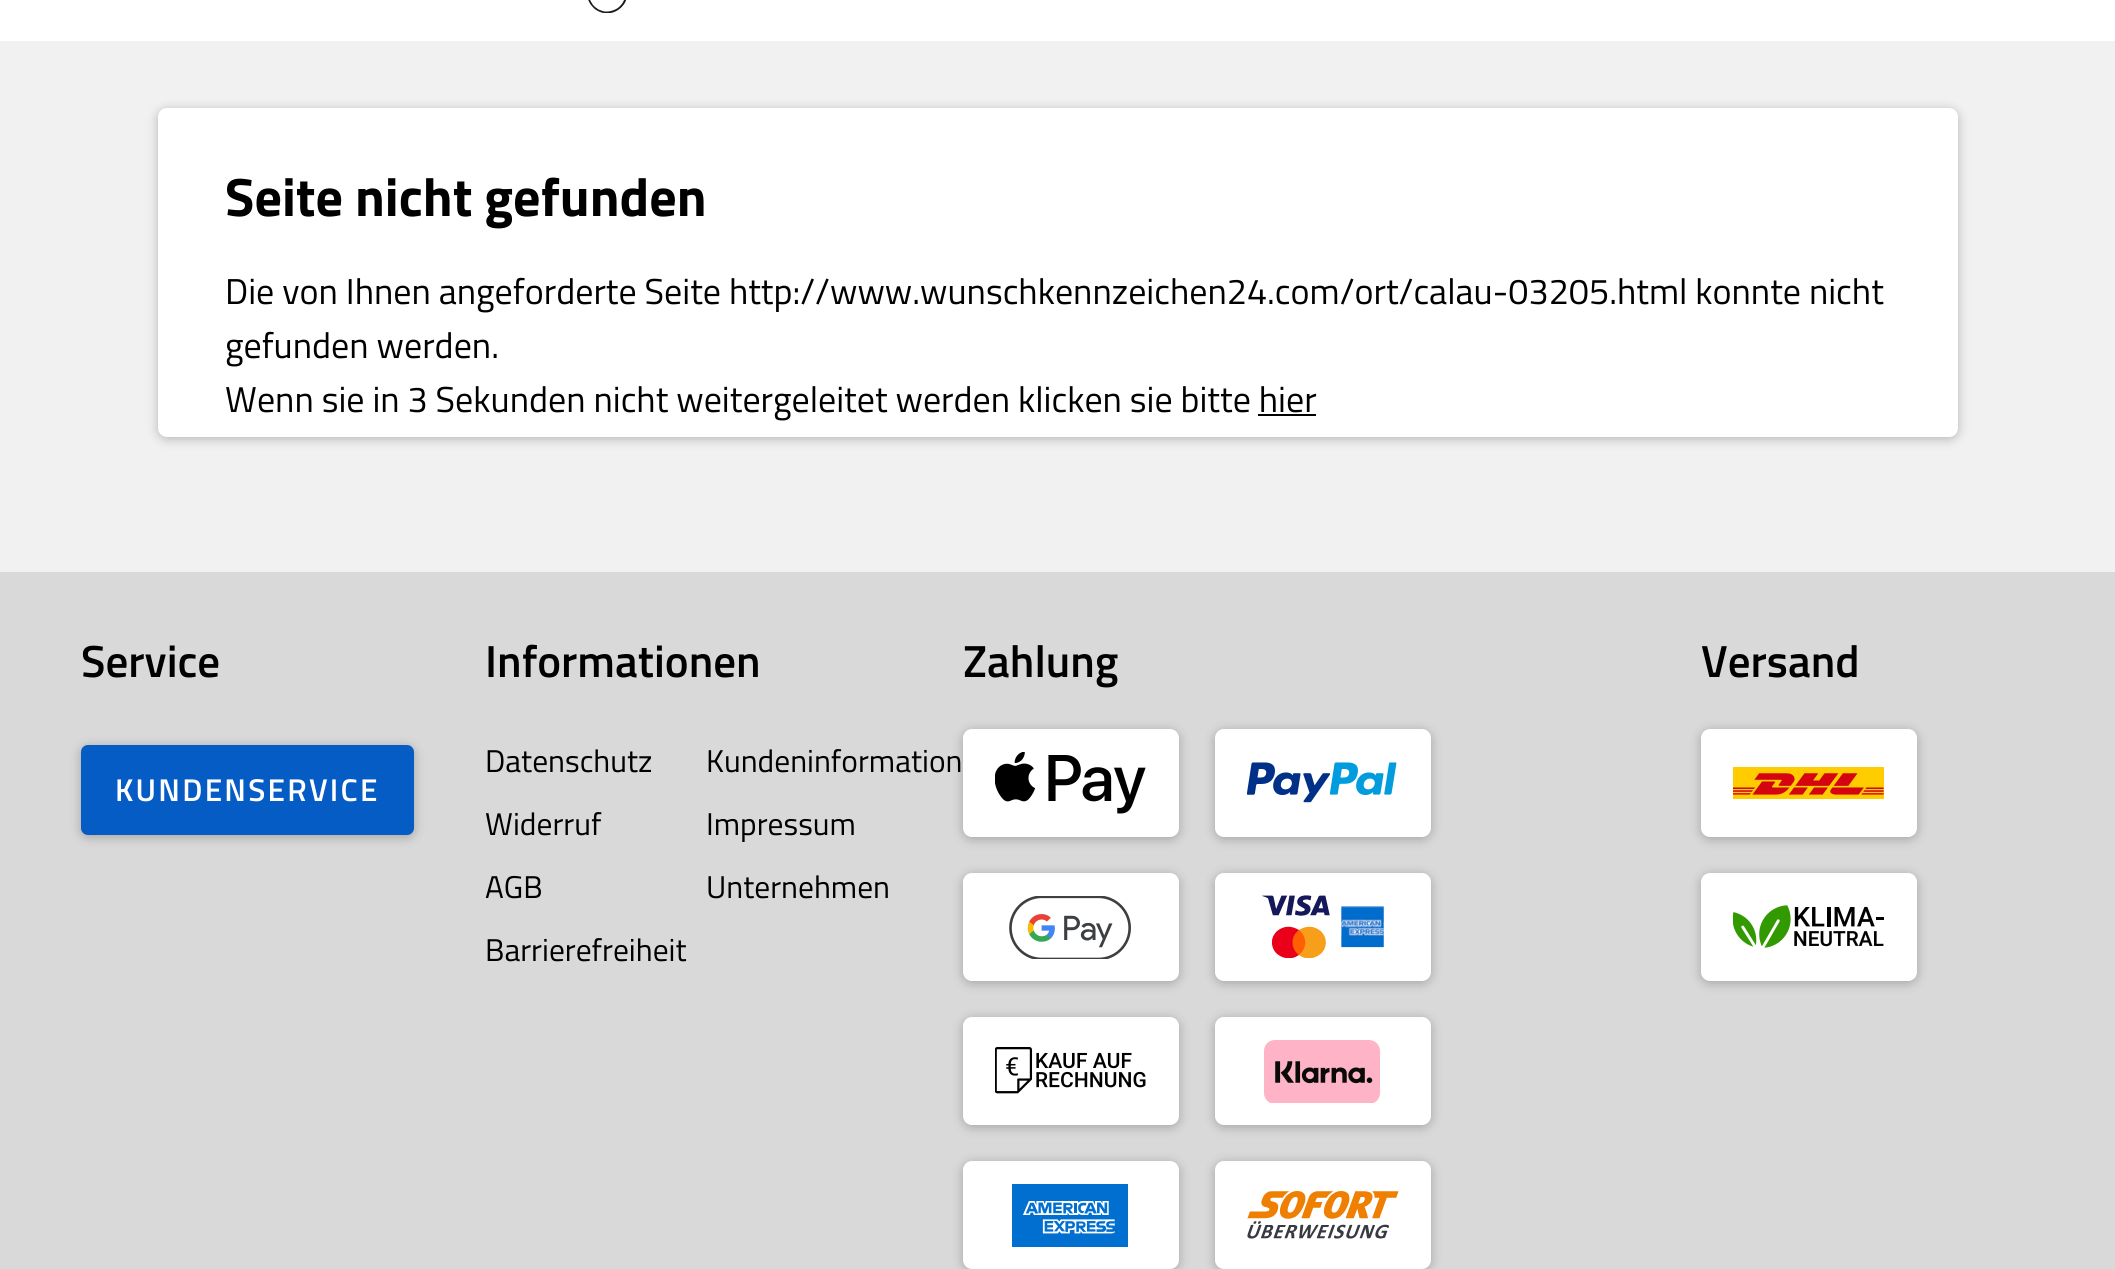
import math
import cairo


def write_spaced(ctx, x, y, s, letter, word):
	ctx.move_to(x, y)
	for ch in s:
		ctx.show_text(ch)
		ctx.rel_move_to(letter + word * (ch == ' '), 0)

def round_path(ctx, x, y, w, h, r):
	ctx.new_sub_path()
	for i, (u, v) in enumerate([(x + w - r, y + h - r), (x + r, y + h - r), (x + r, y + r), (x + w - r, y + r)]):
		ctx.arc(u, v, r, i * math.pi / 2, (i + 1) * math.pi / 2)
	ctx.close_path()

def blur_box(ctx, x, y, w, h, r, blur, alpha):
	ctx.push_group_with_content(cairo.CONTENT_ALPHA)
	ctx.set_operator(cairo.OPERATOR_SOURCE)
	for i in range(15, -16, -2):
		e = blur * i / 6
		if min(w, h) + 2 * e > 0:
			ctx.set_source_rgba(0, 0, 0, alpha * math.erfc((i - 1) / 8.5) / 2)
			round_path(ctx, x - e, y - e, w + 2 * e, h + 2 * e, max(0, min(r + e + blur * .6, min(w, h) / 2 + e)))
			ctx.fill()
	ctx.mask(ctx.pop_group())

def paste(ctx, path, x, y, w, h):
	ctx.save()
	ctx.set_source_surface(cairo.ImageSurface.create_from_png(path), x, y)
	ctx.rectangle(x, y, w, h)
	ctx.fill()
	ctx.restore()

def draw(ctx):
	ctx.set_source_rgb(0.851, 0.851, 0.851)
	ctx.paint()
	ctx.set_source_rgb(1, 1, 1)
	ctx.rectangle(0, 0, 2115, 41)
	ctx.fill()
	paste(ctx, 'media/1.png', 588, 0, 38, 13)
	ctx.set_source_rgb(0.945, 0.945, 0.945)
	ctx.rectangle(0, 41, 2115, 531)
	ctx.fill()
	ctx.set_source_rgb(0, 0, 0)
	blur_box(ctx, 158, 110, 1800, 329, 9, 5.5, 0.25)
	ctx.set_source_rgb(1, 1, 1)
	round_path(ctx, 158, 108, 1800, 329, 9)
	ctx.fill()
	ctx.select_font_face('Titillium Web', cairo.FONT_SLANT_NORMAL, cairo.FONT_WEIGHT_BOLD)
	ctx.set_font_size(54)
	ctx.set_source_rgb(0, 0, 0)
	ctx.move_to(225, 216)
	ctx.show_text('Seite nicht gefunden')
	ctx.select_font_face('Titillium Web')
	ctx.set_font_size(36)
	for x, y, s in [
		(225, 304, 'Die von Ihnen angeforderte Seite http://www.wunschkennzeichen24.com/ort/calau-03205.html konnte nicht'),
		(225, 358, 'gefunden werden.'),
		(225, 412, 'Wenn sie in 3 Sekunden nicht weitergeleitet werden klicken sie bitte hier'),
	]:
		ctx.move_to(x, y)
		ctx.show_text(s)
	ctx.rectangle(1258, 414, 58, 2)
	ctx.fill()
	ctx.select_font_face('Titillium Web SemiBold')
	ctx.set_font_size(45)
	ctx.move_to(81, 677)
	ctx.show_text('Service')
	ctx.set_source_rgb(0, 0, 0)
	blur_box(ctx, 81, 747, 333, 90, 7, 5.5, 0.25)
	ctx.set_source_rgb(0.02, 0.361, 0.773)
	round_path(ctx, 81, 745, 333, 90, 7)
	ctx.fill()
	ctx.set_font_size(31.5)
	ctx.set_source_rgb(1, 1, 1)
	write_spaced(ctx, 115, 801, 'KUNDENSERVICE', 2.25, 0)
	ctx.set_font_size(45)
	ctx.set_source_rgb(0, 0, 0)
	ctx.move_to(485, 677)
	ctx.show_text('Informationen')
	ctx.select_font_face('Titillium Web')
	ctx.set_font_size(31.5)
	for x, y, s in [
		(485, 772, 'Datenschutz'),
		(706, 772, 'Kundeninformation'),
		(485, 835, 'Widerruf'),
		(706, 835, 'Impressum'),
		(485, 898, 'AGB'),
		(706, 898, 'Unternehmen'),
		(485, 961, 'Barrierefreiheit'),
	]:
		ctx.move_to(x, y)
		ctx.show_text(s)
	ctx.select_font_face('Titillium Web SemiBold')
	ctx.set_font_size(45)
	ctx.move_to(963, 677)
	ctx.show_text('Zahlung')
	ctx.set_source_rgb(0, 0, 0)
	blur_box(ctx, 963, 731, 216, 108, 9, 5.5, 0.25)
	ctx.set_source_rgb(1, 1, 1)
	round_path(ctx, 963, 729, 216, 108, 9)
	ctx.fill()
	paste(ctx, 'media/2.png', 995, 752, 151, 62)
	ctx.set_source_rgb(0, 0, 0)
	blur_box(ctx, 1215, 731, 216, 108, 9, 5.5, 0.25)
	ctx.set_source_rgb(1, 1, 1)
	round_path(ctx, 1215, 729, 216, 108, 9)
	ctx.fill()
	paste(ctx, 'media/3.png', 1247, 762, 150, 41)
	ctx.set_source_rgb(0, 0, 0)
	blur_box(ctx, 963, 875, 216, 108, 9, 5.5, 0.25)
	ctx.set_source_rgb(1, 1, 1)
	round_path(ctx, 963, 873, 216, 108, 9)
	ctx.fill()
	paste(ctx, 'media/4.png', 1009, 896, 122, 63)
	ctx.set_source_rgb(0, 0, 0)
	blur_box(ctx, 1215, 875, 216, 108, 9, 5.5, 0.25)
	ctx.set_source_rgb(1, 1, 1)
	round_path(ctx, 1215, 873, 216, 108, 9)
	ctx.fill()
	paste(ctx, 'media/5.png', 1262, 895, 122, 63)
	ctx.set_source_rgb(0, 0, 0)
	blur_box(ctx, 963, 1019, 216, 108, 9, 5.5, 0.25)
	ctx.set_source_rgb(1, 1, 1)
	round_path(ctx, 963, 1017, 216, 108, 9)
	ctx.fill()
	paste(ctx, 'media/6.png', 995, 1047, 151, 47)
	ctx.set_source_rgb(0, 0, 0)
	blur_box(ctx, 1215, 1019, 216, 108, 9, 5.5, 0.25)
	ctx.set_source_rgb(1, 1, 1)
	round_path(ctx, 1215, 1017, 216, 108, 9)
	ctx.fill()
	paste(ctx, 'media/7.png', 1264, 1040, 116, 63)
	ctx.set_source_rgb(0, 0, 0)
	blur_box(ctx, 963, 1163, 216, 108, 9, 5.5, 0.25)
	ctx.set_source_rgb(1, 1, 1)
	round_path(ctx, 963, 1161, 216, 108, 9)
	ctx.fill()
	paste(ctx, 'media/8.png', 1012, 1184, 116, 63)
	ctx.set_source_rgb(0, 0, 0)
	blur_box(ctx, 1215, 1163, 216, 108, 9, 5.5, 0.25)
	ctx.set_source_rgb(1, 1, 1)
	round_path(ctx, 1215, 1161, 216, 108, 9)
	ctx.fill()
	paste(ctx, 'media/9.png', 1247, 1191, 152, 48)
	ctx.set_source_rgb(0, 0, 0)
	ctx.move_to(1701, 677)
	ctx.show_text('Versand')
	ctx.set_source_rgb(0, 0, 0)
	blur_box(ctx, 1701, 731, 216, 108, 9, 5.5, 0.25)
	ctx.set_source_rgb(1, 1, 1)
	round_path(ctx, 1701, 729, 216, 108, 9)
	ctx.fill()
	paste(ctx, 'media/10.png', 1733, 767, 151, 32)
	ctx.set_source_rgb(0, 0, 0)
	blur_box(ctx, 1701, 875, 216, 108, 9, 5.5, 0.25)
	ctx.set_source_rgb(1, 1, 1)
	round_path(ctx, 1701, 873, 216, 108, 9)
	ctx.fill()
	paste(ctx, 'media/11.png', 1733, 905, 151, 43)


surface = cairo.ImageSurface(cairo.FORMAT_RGB24, 2115, 1269)
ctx = cairo.Context(surface)
options = cairo.FontOptions()
options.set_hint_metrics(cairo.HINT_METRICS_OFF)
options.set_hint_style(cairo.HINT_STYLE_NONE)
ctx.set_font_options(options)
ctx.set_miter_limit(4)
draw(ctx)
surface.write_to_png('image.png')
